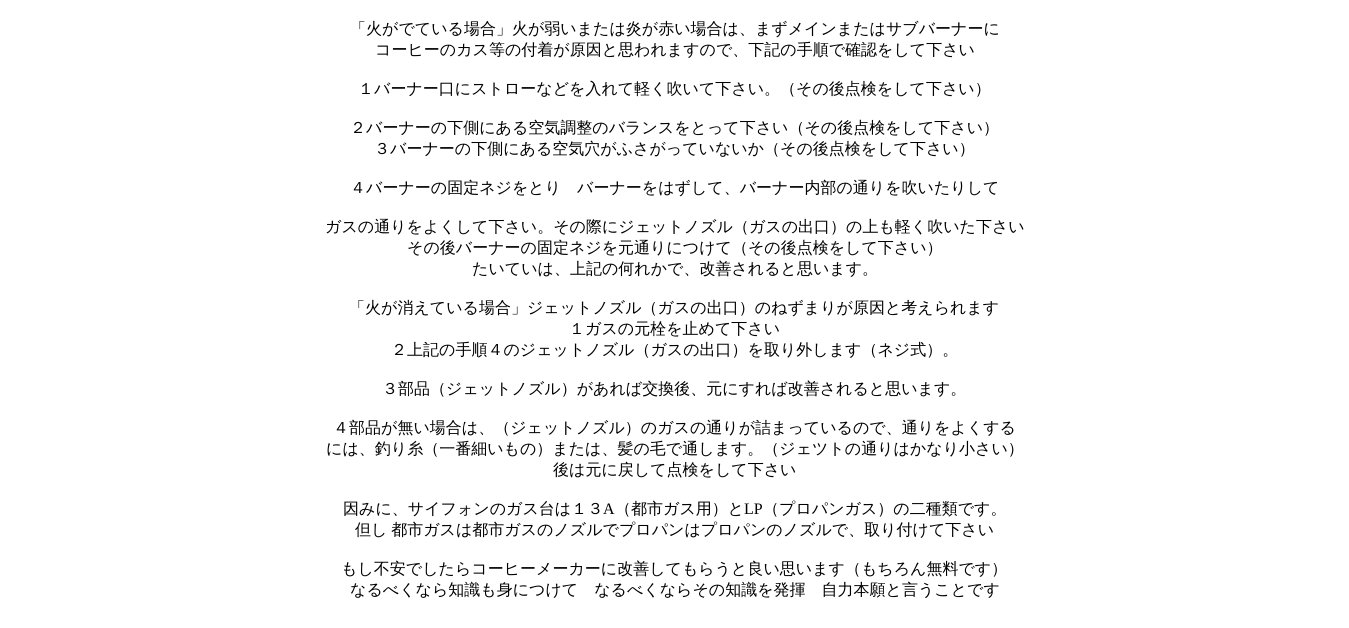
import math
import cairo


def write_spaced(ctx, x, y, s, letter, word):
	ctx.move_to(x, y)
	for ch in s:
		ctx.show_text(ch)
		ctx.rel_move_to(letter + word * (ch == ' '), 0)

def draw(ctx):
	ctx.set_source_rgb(1, 1, 1)
	ctx.paint()
	ctx.select_font_face('WenQuanYi Zen Hei Medium')
	ctx.set_font_size(16)
	ctx.set_source_rgb(0, 0, 0)
	for x, y, s in [
		(350, 34, '「火がでている場合」火が弱いまたは炎が赤い場合は、まずメインまたはサブバーナーに'),
		(375, 55, 'コーヒーのカス等の付着が原因と思われますので、下記の手順で確認をして下さい'),
		(358, 94, '１バーナー口にストローなどを入れて軽く吹いて下さい。（その後点検をして下さい）'),
		(350, 133, '２バーナーの下側にある空気調整のバランスをとって下さい（その後点検をして下さい）'),
		(374, 154, '３バーナーの下側にある空気穴がふさがっていないか（その後点検をして下さい）'),
		(350, 193, '４バーナーの固定ネジをとり　バーナーをはずして、バーナー内部の通りを吹いたりして'),
		(325, 232, 'ガスの通りをよくして下さい。その際にジェットノズル（ガスの出口）の上も軽く吹いた下さい'),
		(407, 253, 'その後バーナーの固定ネジを元通りにつけて（その後点検をして下さい）'),
		(472, 274, 'たいていは、上記の何れかで、改善されると思います。'),
		(349, 313, '「火が消えている場合」ジェットノズル（ガスの出口）のねずまりが原因と考えられます'),
		(569, 334, '１ガスの元栓を止めて下さい'),
		(391, 355, '２上記の手順４のジェットノズル（ガスの出口）を取り外します（ネジ式）。'),
		(382, 394, '３部品（ジェットノズル）があれば交換後、元にすれば改善されると思います。'),
		(333, 433, '４部品が無い場合は、（ジェットノズル）のガスの通りが詰まっているので、通りをよくする'),
		(326, 454, 'には、釣り糸（一番細いもの）または、髪の毛で通します。（ジェツトの通りはかなり小さい）'),
		(553, 475, '後は元に戻して点検をして下さい'),
		(343, 514, '因みに、サイフォンのガス台は１３'),
	]:
		ctx.move_to(x, y)
		ctx.show_text(s)
	ctx.select_font_face('Liberation Serif')
	ctx.move_to(603, 514)
	ctx.show_text('A')
	ctx.select_font_face('WenQuanYi Zen Hei Medium')
	ctx.move_to(615, 514)
	ctx.show_text('（都市ガス用）と')
	ctx.select_font_face('Liberation Serif')
	ctx.move_to(744, 514)
	ctx.show_text('LP')
	ctx.select_font_face('WenQuanYi Zen Hei Medium')
	ctx.move_to(763, 514)
	ctx.show_text('（プロパンガス）の二種類です。')
	write_spaced(ctx, 355, 535, '但し 都市ガスは都市ガスのノズルでプロパンはプロパンのノズルで、取り付けて下さい', 0, -1)
	ctx.move_to(341, 574)
	ctx.show_text('もし不安でしたらコーヒーメーカーに改善してもらうと良い思います（もちろん無料です）')
	ctx.move_to(350, 595)
	ctx.show_text('なるべくなら知識も身につけて　なるべくならその知識を発揮　自力本願と言うことです')


surface = cairo.ImageSurface(cairo.FORMAT_RGB24, 1349, 628)
ctx = cairo.Context(surface)
options = cairo.FontOptions()
options.set_hint_metrics(cairo.HINT_METRICS_OFF)
options.set_hint_style(cairo.HINT_STYLE_NONE)
ctx.set_font_options(options)
ctx.set_miter_limit(4)
draw(ctx)
surface.write_to_png('image.png')
